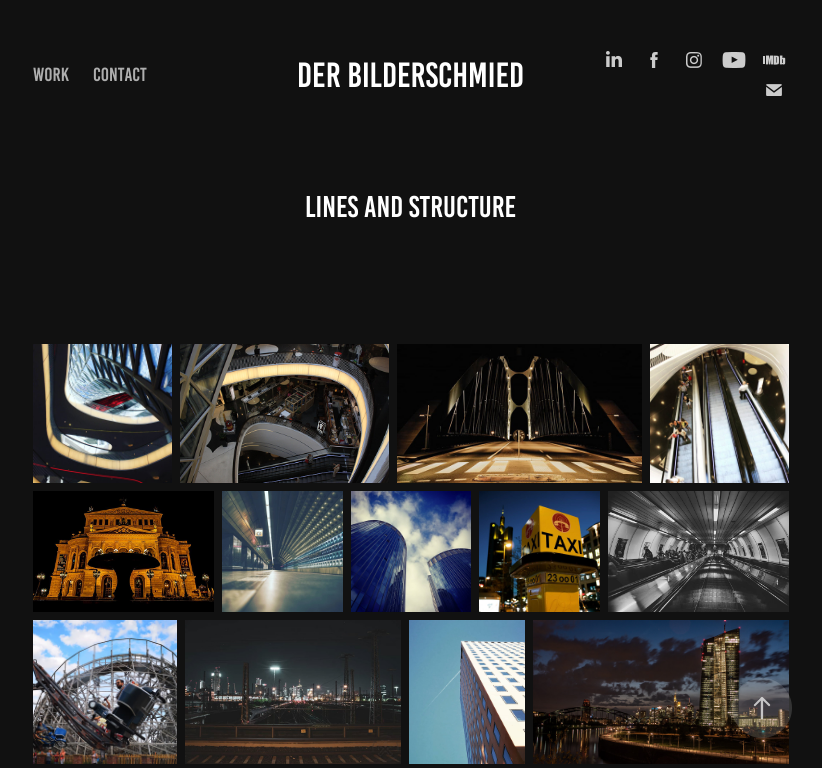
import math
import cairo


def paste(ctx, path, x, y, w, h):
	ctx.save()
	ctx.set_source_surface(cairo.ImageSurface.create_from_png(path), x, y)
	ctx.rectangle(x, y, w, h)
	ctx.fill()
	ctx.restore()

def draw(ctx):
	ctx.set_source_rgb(0.067, 0.067, 0.067)
	ctx.paint()
	ctx.select_font_face('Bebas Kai')
	ctx.set_font_size(19)
	ctx.set_source_rgb(0.682, 0.682, 0.682)
	ctx.move_to(33, 81)
	ctx.show_text('WORK')
	ctx.move_to(93, 81)
	ctx.show_text('CONTACT')
	ctx.set_font_size(35)
	ctx.set_source_rgb(1, 1, 1)
	ctx.move_to(297, 87)
	ctx.show_text('DER BILDERSCHMIED')
	paste(ctx, 'media/1.png', 606, 51, 16, 16)
	paste(ctx, 'media/2.png', 650, 52, 8, 16)
	paste(ctx, 'media/3.png', 686, 52, 16, 16)
	paste(ctx, 'media/4.png', 722, 52, 24, 16)
	paste(ctx, 'media/5.png', 763, 55, 23, 10)
	paste(ctx, 'media/6.png', 766, 84, 16, 12)
	ctx.set_font_size(30)
	ctx.move_to(305, 217)
	ctx.show_text('Lines and Structure')
	paste(ctx, 'media/7.png', 33, 344, 139, 139)
	paste(ctx, 'media/8.png', 180, 344, 209, 139)
	paste(ctx, 'media/9.png', 397, 344, 245, 139)
	paste(ctx, 'media/10.png', 650, 344, 139, 139)
	paste(ctx, 'media/11.png', 33, 491, 181, 121)
	paste(ctx, 'media/12.png', 222, 491, 121, 121)
	paste(ctx, 'media/13.png', 351, 491, 120, 121)
	paste(ctx, 'media/14.png', 479, 491, 121, 121)
	paste(ctx, 'media/15.png', 608, 491, 181, 121)
	paste(ctx, 'media/16.png', 33, 620, 144, 144)
	paste(ctx, 'media/17.png', 185, 620, 216, 144)
	paste(ctx, 'media/18.png', 409, 620, 116, 144)
	paste(ctx, 'media/19.png', 533, 620, 256, 144)
	ctx.set_source_rgba(1, 1, 1, 0.15)
	ctx.arc(762, 708, 30, 0, 2 * math.pi)
	ctx.fill()
	paste(ctx, 'media/20.png', 753, 697, 18, 23)


surface = cairo.ImageSurface(cairo.FORMAT_RGB24, 822, 768)
ctx = cairo.Context(surface)
options = cairo.FontOptions()
options.set_hint_metrics(cairo.HINT_METRICS_OFF)
options.set_hint_style(cairo.HINT_STYLE_NONE)
ctx.set_font_options(options)
ctx.set_miter_limit(4)
draw(ctx)
surface.write_to_png('image.png')
